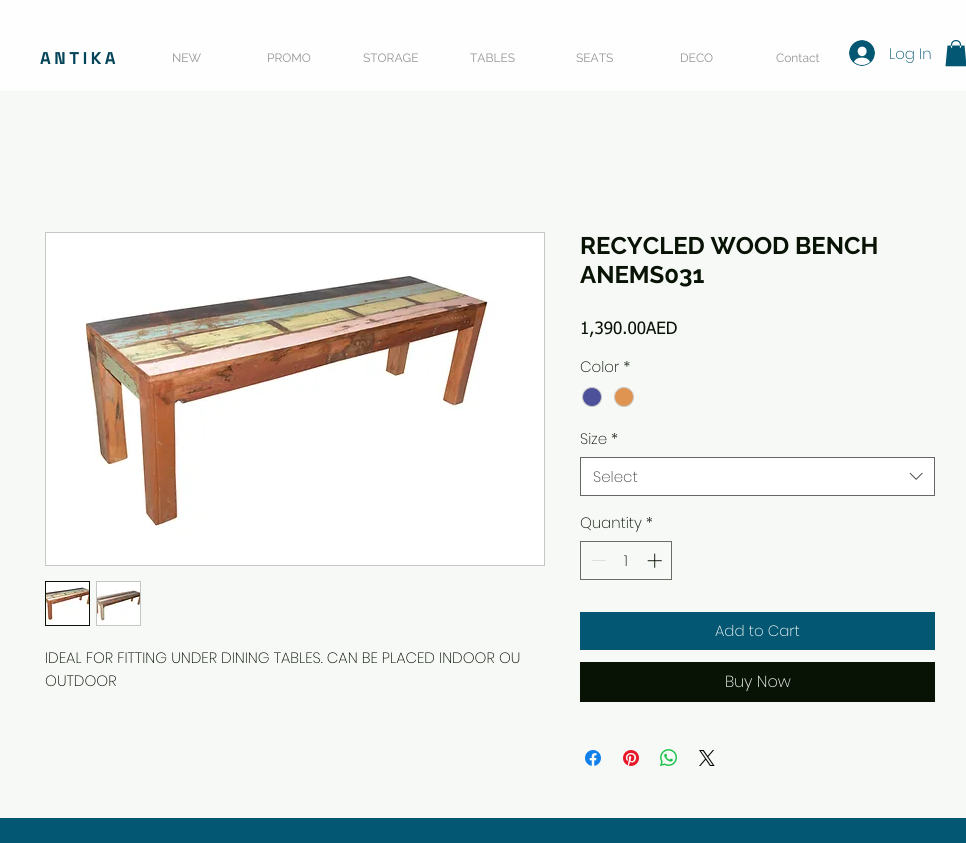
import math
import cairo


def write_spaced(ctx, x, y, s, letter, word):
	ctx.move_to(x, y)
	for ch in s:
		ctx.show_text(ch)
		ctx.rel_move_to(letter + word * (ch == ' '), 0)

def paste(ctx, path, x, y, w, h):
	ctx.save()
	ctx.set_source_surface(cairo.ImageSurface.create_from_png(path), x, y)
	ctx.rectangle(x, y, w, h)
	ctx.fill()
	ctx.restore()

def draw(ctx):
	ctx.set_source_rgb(0.965, 0.976, 0.961)
	ctx.paint()
	ctx.set_source_rgb(0.996, 0.996, 0.996)
	ctx.rectangle(0, 0, 966, 91)
	ctx.fill()
	ctx.select_font_face('Space Grotesk', cairo.FONT_SLANT_NORMAL, cairo.FONT_WEIGHT_BOLD)
	ctx.set_font_size(17)
	ctx.set_source_rgb(0.012, 0.267, 0.349)
	write_spaced(ctx, 40, 64, 'ANTIKA', 3.5, 0)
	ctx.select_font_face('Raleway')
	ctx.set_font_size(12)
	ctx.set_source_rgb(0.58, 0.584, 0.576)
	for x, y, s in [
		(172, 62, 'NEW'),
		(267, 62, 'PROMO'),
		(363, 62, 'STORAGE'),
		(470, 62, 'TABLES'),
		(576, 62, 'SEATS'),
		(680, 62, 'DECO'),
		(776, 62, 'Contact'),
	]:
		ctx.move_to(x, y)
		ctx.show_text(s)
	paste(ctx, 'media/1.png', 849, 40, 26, 26)
	ctx.select_font_face('Poppins ExtraLight')
	ctx.set_font_size(15)
	ctx.set_source_rgb(0.012, 0.341, 0.447)
	ctx.move_to(889, 59)
	ctx.show_text('Log In')
	paste(ctx, 'media/2.png', 945, 40, 21, 27)
	ctx.rectangle(45.5, 232.5, 499, 333)
	ctx.set_source_rgb(0.773, 0.78, 0.769)
	ctx.set_line_width(1)
	ctx.stroke()
	paste(ctx, 'media/3.png', 46, 233, 498, 332)
	ctx.rectangle(45.5, 581.5, 44, 44)
	ctx.set_source_rgb(0.035, 0.078, 0.02)
	ctx.stroke()
	paste(ctx, 'media/4.png', 46, 582, 43, 43)
	ctx.rectangle(96.5, 581.5, 44, 44)
	ctx.set_source_rgb(0.773, 0.78, 0.769)
	ctx.stroke()
	paste(ctx, 'media/5.png', 97, 582, 43, 43)
	ctx.set_source_rgb(0.035, 0.078, 0.02)
	ctx.move_to(45, 663)
	ctx.show_text('IDEAL FOR FITTING UNDER DINING TABLES. CAN BE PLACED INDOOR OU')
	ctx.move_to(45, 686)
	ctx.show_text('OUTDOOR')
	ctx.select_font_face('Raleway', cairo.FONT_SLANT_NORMAL, cairo.FONT_WEIGHT_BOLD)
	ctx.set_font_size(24)
	ctx.move_to(580, 254)
	ctx.show_text('RECYCLED WOOD BENCH')
	ctx.move_to(580, 283)
	ctx.show_text('ANEMS031')
	ctx.select_font_face('tahoma')
	ctx.set_font_size(17)
	ctx.move_to(580, 334)
	ctx.show_text('1,390.00AED')
	ctx.select_font_face('Poppins ExtraLight')
	ctx.set_font_size(15)
	ctx.move_to(580, 372)
	ctx.show_text('Color *')
	ctx.set_source_rgb(0.298, 0.318, 0.604)
	ctx.new_path()
	ctx.arc(592, 397, 9.5, 0, 2 * math.pi)
	ctx.fill_preserve()
	ctx.set_source_rgb(0.788, 0.788, 0.788)
	ctx.stroke()
	ctx.set_source_rgb(0.875, 0.58, 0.318)
	ctx.arc(624, 397, 9.5, 0, 2 * math.pi)
	ctx.fill_preserve()
	ctx.set_source_rgb(0.788, 0.788, 0.788)
	ctx.stroke()
	ctx.set_source_rgb(0.035, 0.078, 0.02)
	ctx.move_to(580, 444)
	ctx.show_text('Size *')
	ctx.set_source_rgb(1, 1, 1)
	ctx.rectangle(580.5, 457.5, 354, 38)
	ctx.fill_preserve()
	ctx.set_source_rgb(0.4, 0.4, 0.4)
	ctx.stroke()
	ctx.set_source_rgb(0.267, 0.267, 0.267)
	ctx.move_to(593, 482)
	ctx.show_text('Select')
	paste(ctx, 'media/6.png', 909, 472, 14, 8)
	ctx.set_source_rgb(0.035, 0.078, 0.02)
	ctx.move_to(580, 528)
	ctx.show_text('Quantity *')
	ctx.rectangle(580.5, 541.5, 91, 38)
	ctx.set_source_rgb(0.408, 0.439, 0.396)
	ctx.stroke()
	ctx.set_source_rgb(0.875, 0.878, 0.871)
	ctx.rectangle(592, 560, 14, 1)
	ctx.fill()
	ctx.set_source_rgb(0.035, 0.078, 0.02)
	ctx.move_to(624, 566)
	ctx.show_text('1')
	paste(ctx, 'media/7.png', 647, 553, 15, 15)
	ctx.set_source_rgb(0.012, 0.341, 0.447)
	ctx.rectangle(580, 612, 355, 38)
	ctx.fill()
	ctx.set_source_rgb(0.965, 0.976, 0.961)
	ctx.move_to(715, 636)
	ctx.show_text('Add to Cart')
	ctx.set_source_rgb(0.035, 0.078, 0.02)
	ctx.rectangle(580, 662, 355, 40)
	ctx.fill()
	ctx.set_font_size(16)
	ctx.set_source_rgb(0.965, 0.976, 0.961)
	ctx.move_to(725, 687)
	ctx.show_text('Buy Now')
	paste(ctx, 'media/8.png', 585, 750, 16, 16)
	paste(ctx, 'media/9.png', 623, 750, 16, 16)
	paste(ctx, 'media/10.png', 660, 749, 17, 17)
	paste(ctx, 'media/11.png', 699, 750, 16, 16)
	ctx.set_source_rgb(0.012, 0.341, 0.447)
	ctx.rectangle(0, 818, 966, 25)
	ctx.fill()


surface = cairo.ImageSurface(cairo.FORMAT_RGB24, 966, 843)
ctx = cairo.Context(surface)
options = cairo.FontOptions()
options.set_hint_metrics(cairo.HINT_METRICS_OFF)
options.set_hint_style(cairo.HINT_STYLE_NONE)
ctx.set_font_options(options)
ctx.set_miter_limit(4)
draw(ctx)
surface.write_to_png('image.png')
